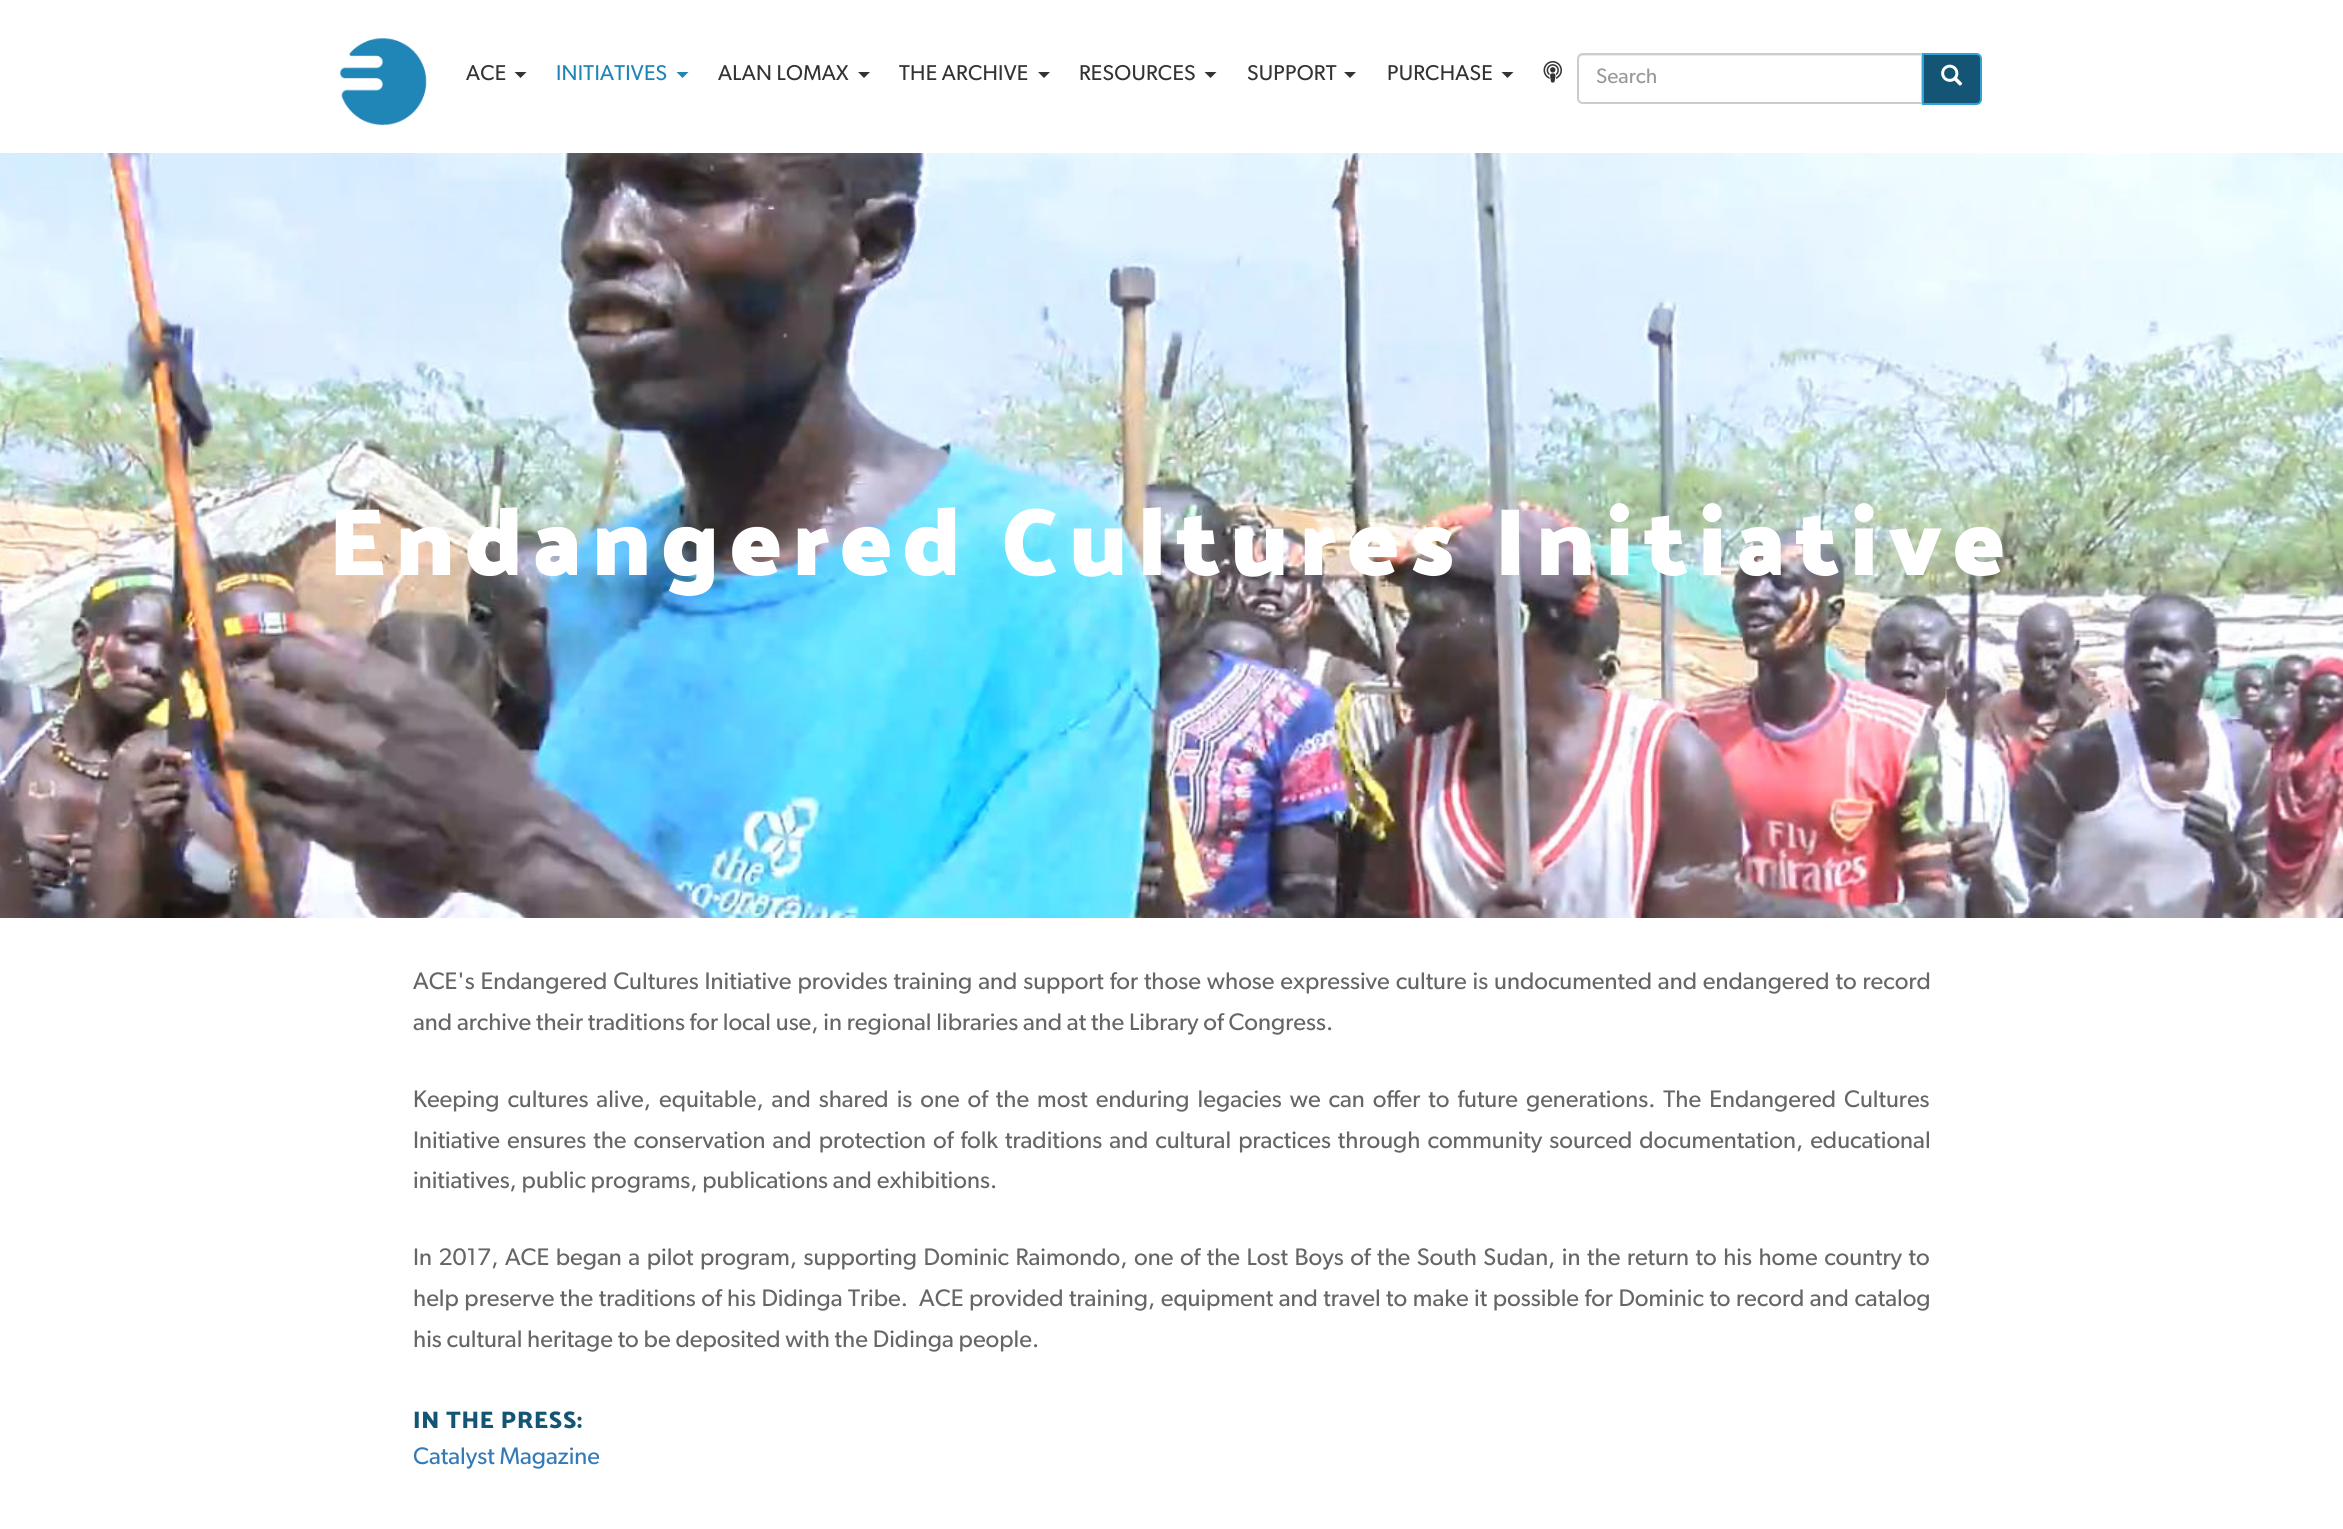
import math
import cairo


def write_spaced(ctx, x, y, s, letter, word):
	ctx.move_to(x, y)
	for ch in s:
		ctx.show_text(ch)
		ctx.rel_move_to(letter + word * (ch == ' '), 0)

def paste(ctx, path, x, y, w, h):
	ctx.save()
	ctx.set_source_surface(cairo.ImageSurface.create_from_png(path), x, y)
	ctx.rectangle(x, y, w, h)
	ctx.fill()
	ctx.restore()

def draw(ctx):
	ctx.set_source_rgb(1, 1, 1)
	ctx.paint()
	paste(ctx, 'media/1.png', 339, 38, 88, 88)
	ctx.select_font_face('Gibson')
	ctx.set_font_size(21.5)
	ctx.set_source_rgb(0.2, 0.2, 0.2)
	write_spaced(ctx, 466, 80, 'ACE', 0.25, 0)
	ctx.new_path()
	ctx.move_to(514.5, 72)
	ctx.line_to(526.5, 72)
	ctx.line_to(520.5, 78)
	ctx.close_path()
	ctx.fill()
	ctx.set_source_rgb(0.122, 0.522, 0.718)
	write_spaced(ctx, 556, 80, 'INITIATIVES', 0.25, 0)
	ctx.new_path()
	ctx.move_to(676.5, 72)
	ctx.line_to(688.5, 72)
	ctx.line_to(682.5, 78)
	ctx.close_path()
	ctx.fill()
	ctx.set_source_rgb(0.2, 0.2, 0.2)
	write_spaced(ctx, 718, 80, 'ALAN LOMAX', 0.25, 0)
	ctx.new_path()
	ctx.move_to(858, 72)
	ctx.line_to(870, 72)
	ctx.line_to(864, 78)
	ctx.close_path()
	ctx.fill()
	write_spaced(ctx, 899, 80, 'THE ARCHIVE', 0.25, 0)
	ctx.new_path()
	ctx.move_to(1038, 72)
	ctx.line_to(1050, 72)
	ctx.line_to(1044, 78)
	ctx.close_path()
	ctx.fill()
	write_spaced(ctx, 1079, 80, 'RESOURCES', 0.25, 0)
	ctx.new_path()
	ctx.move_to(1204.5, 72)
	ctx.line_to(1216.5, 72)
	ctx.line_to(1210.5, 78)
	ctx.close_path()
	ctx.fill()
	write_spaced(ctx, 1247, 80, 'SUPPORT', 0.25, 0)
	ctx.new_path()
	ctx.move_to(1344, 72)
	ctx.line_to(1356, 72)
	ctx.line_to(1350, 78)
	ctx.close_path()
	ctx.fill()
	write_spaced(ctx, 1387, 80, 'PURCHASE', 0.25, 0)
	ctx.new_path()
	ctx.move_to(1501.5, 72)
	ctx.line_to(1513.5, 72)
	ctx.line_to(1507.5, 78)
	ctx.close_path()
	ctx.fill()
	paste(ctx, 'media/2.png', 1543, 61, 19, 22)
	ctx.set_source_rgb(0.925, 0.925, 0.925)
	ctx.new_path()
	ctx.move_to(1582, 56)
	ctx.line_to(1922, 56)
	ctx.line_to(1922, 54)
	ctx.line_to(1583, 54)
	ctx.curve_to(1580, 54, 1578, 57, 1578, 60)
	ctx.curve_to(1578, 58, 1580, 56, 1582, 56)
	ctx.close_path()
	ctx.fill()
	ctx.new_path()
	ctx.move_to(1583, 54)
	ctx.line_to(1922, 54)
	ctx.line_to(1922, 103)
	ctx.line_to(1583, 103)
	ctx.curve_to(1580, 103, 1578, 101, 1578, 98)
	ctx.line_to(1578, 59)
	ctx.curve_to(1578, 56, 1580, 54, 1583, 54)
	ctx.close_path()
	ctx.set_source_rgb(0.8, 0.8, 0.8)
	ctx.stroke()
	ctx.set_font_size(21)
	ctx.set_source_rgb(0.6, 0.6, 0.6)
	ctx.move_to(1596, 83)
	ctx.show_text('Search')
	ctx.set_source_rgb(0.082, 0.333, 0.459)
	ctx.new_path()
	ctx.move_to(1923, 54)
	ctx.line_to(1976, 54)
	ctx.curve_to(1979, 54, 1981, 56, 1981, 59)
	ctx.line_to(1981, 99)
	ctx.curve_to(1981, 102, 1979, 104, 1976, 104)
	ctx.line_to(1923, 104)
	ctx.close_path()
	ctx.fill_preserve()
	ctx.set_source_rgb(0.196, 0.631, 0.855)
	ctx.stroke()
	paste(ctx, 'media/3.png', 1941, 64, 22, 22)
	paste(ctx, 'media/4.png', 0, 153, 2343, 765)
	ctx.select_font_face('Palanquin Dark', cairo.FONT_SLANT_NORMAL, cairo.FONT_WEIGHT_BOLD)
	ctx.set_font_size(96)
	ctx.set_source_rgb(1, 1, 1)
	write_spaced(ctx, 329, 575, 'Endangered Cultures Initiative', 9.6, 0)
	ctx.select_font_face('Gibson')
	ctx.set_font_size(24)
	ctx.set_source_rgb(0.4, 0.4, 0.4)
	write_spaced(ctx, 413, 989, 'ACE\'s Endangered Cultures Initiative provides training and support for those whose expressive culture is undocumented and endangered to record', 0, 1.1)
	ctx.move_to(413, 1030)
	ctx.show_text('and archive their traditions for local use, in regional libraries and at the Library of Congress.')
	write_spaced(ctx, 413, 1107, 'Keeping cultures alive, equitable, and shared is one of the most enduring legacies we can offer to future generations. The Endangered Cultures', 0, 3.2)
	write_spaced(ctx, 413, 1148, 'Initiative ensures the conservation and protection of folk traditions and cultural practices through community sourced documentation, educational', 0, 2.25)
	ctx.move_to(413, 1188)
	ctx.show_text('initiatives, public programs, publications and exhibitions.')
	write_spaced(ctx, 413, 1265, 'In 2017, ACE began a pilot program, supporting Dominic Raimondo, one of the Lost Boys of the South Sudan, in the return to his home country to', 0, 1.75)
	write_spaced(ctx, 413, 1306, 'help preserve the traditions of his Didinga Tribe.  ACE provided training, equipment and travel to make it possible for Dominic to record and catalog', 0, 0.75)
	ctx.move_to(413, 1347)
	ctx.show_text('his cultural heritage to be deposited with the Didinga people.')
	ctx.select_font_face('Palanquin Dark SemiBold')
	ctx.set_source_rgb(0.082, 0.333, 0.459)
	write_spaced(ctx, 413, 1428, 'IN THE PRESS:', 0.75, 0)
	ctx.select_font_face('Gibson')
	ctx.set_source_rgb(0.2, 0.478, 0.718)
	ctx.move_to(413, 1464)
	ctx.show_text('Catalyst Magazine')


surface = cairo.ImageSurface(cairo.FORMAT_RGB24, 2343, 1529)
ctx = cairo.Context(surface)
options = cairo.FontOptions()
options.set_hint_metrics(cairo.HINT_METRICS_OFF)
options.set_hint_style(cairo.HINT_STYLE_NONE)
ctx.set_font_options(options)
ctx.set_miter_limit(4)
draw(ctx)
surface.write_to_png('image.png')
